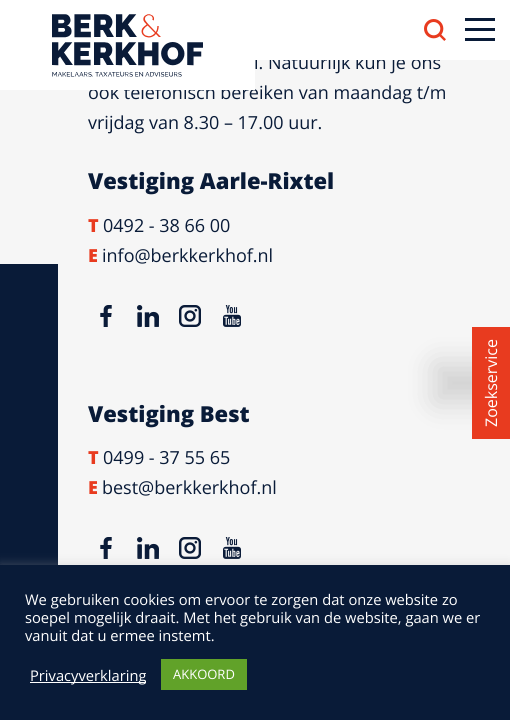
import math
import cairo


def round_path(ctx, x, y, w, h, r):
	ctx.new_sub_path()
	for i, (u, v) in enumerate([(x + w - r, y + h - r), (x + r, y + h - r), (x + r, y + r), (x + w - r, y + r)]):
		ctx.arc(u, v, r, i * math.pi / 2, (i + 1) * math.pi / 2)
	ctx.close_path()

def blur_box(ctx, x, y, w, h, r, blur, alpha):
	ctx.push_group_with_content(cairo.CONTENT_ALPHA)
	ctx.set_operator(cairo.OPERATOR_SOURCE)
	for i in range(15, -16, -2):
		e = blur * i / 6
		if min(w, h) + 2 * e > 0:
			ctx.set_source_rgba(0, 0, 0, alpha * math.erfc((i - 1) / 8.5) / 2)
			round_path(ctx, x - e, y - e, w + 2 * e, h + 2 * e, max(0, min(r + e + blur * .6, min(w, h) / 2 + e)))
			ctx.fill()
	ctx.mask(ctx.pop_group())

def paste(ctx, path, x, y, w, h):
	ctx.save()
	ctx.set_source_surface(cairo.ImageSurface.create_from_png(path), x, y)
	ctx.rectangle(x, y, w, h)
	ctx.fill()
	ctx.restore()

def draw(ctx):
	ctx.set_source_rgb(0.961, 0.961, 0.961)
	ctx.paint()
	ctx.select_font_face('Open Sans')
	ctx.set_font_size(18)
	ctx.set_source_rgb(0.039, 0.106, 0.22)
	ctx.move_to(254, 69)
	ctx.show_text('l. Natuurlijk kun je ons')
	ctx.set_source_rgb(1, 1, 1)
	ctx.rectangle(255, 0, 255, 60)
	ctx.fill()
	ctx.set_source_rgb(0.039, 0.106, 0.22)
	ctx.move_to(88, 99)
	ctx.show_text('ook telefonisch bereiken van maandag t/m')
	ctx.set_source_rgb(1, 1, 1)
	ctx.rectangle(0, 0, 255, 90)
	ctx.fill()
	paste(ctx, 'media/1.png', 52, 14, 151, 63)
	paste(ctx, 'media/2.png', 424, 19, 22, 22)
	ctx.set_source_rgb(0.039, 0.106, 0.22)
	ctx.rectangle(465, 18, 30, 3)
	ctx.rectangle(465, 38, 30, 3)
	ctx.rectangle(465, 28, 30, 3)
	ctx.rectangle(0, 264, 58, 301)
	ctx.fill()
	ctx.move_to(88, 129)
	ctx.show_text('vrijdag van 8.30 – 17.00 uur.')
	ctx.select_font_face('Open Sans ExtraBold')
	ctx.set_font_size(22)
	ctx.move_to(88, 189)
	ctx.show_text('Vestiging Aarle-Rixtel')
	ctx.set_font_size(18)
	ctx.set_source_rgb(0.91, 0.231, 0.122)
	ctx.move_to(88, 232)
	ctx.show_text('T')
	ctx.select_font_face('Open Sans')
	ctx.set_source_rgb(0.039, 0.106, 0.22)
	ctx.move_to(103, 232)
	ctx.show_text('0492 - 38 66 00')
	ctx.select_font_face('Open Sans ExtraBold')
	ctx.set_source_rgb(0.91, 0.231, 0.122)
	ctx.move_to(88, 262)
	ctx.show_text('E')
	ctx.select_font_face('Open Sans')
	ctx.set_source_rgb(0.039, 0.106, 0.22)
	ctx.move_to(102, 262)
	ctx.show_text('info@berkkerkhof.nl')
	paste(ctx, 'media/3.png', 100, 305, 12, 22)
	paste(ctx, 'media/4.png', 137, 305, 22, 22)
	paste(ctx, 'media/5.png', 179, 305, 22, 22)
	paste(ctx, 'media/6.png', 223, 305, 18, 22)
	ctx.select_font_face('Open Sans ExtraBold')
	ctx.set_font_size(22)
	ctx.move_to(88, 422)
	ctx.show_text('Vestiging Best')
	ctx.set_font_size(18)
	ctx.set_source_rgb(0.91, 0.231, 0.122)
	ctx.move_to(88, 464)
	ctx.show_text('T')
	ctx.select_font_face('Open Sans')
	ctx.set_source_rgb(0.039, 0.106, 0.22)
	ctx.move_to(103, 464)
	ctx.show_text('0499 - 37 55 65')
	ctx.select_font_face('Open Sans ExtraBold')
	ctx.set_source_rgb(0.91, 0.231, 0.122)
	ctx.move_to(88, 494)
	ctx.show_text('E')
	ctx.select_font_face('Open Sans')
	ctx.set_source_rgb(0.039, 0.106, 0.22)
	ctx.move_to(102, 494)
	ctx.show_text('best@berkkerkhof.nl')
	paste(ctx, 'media/3.png', 100, 537, 12, 22)
	paste(ctx, 'media/4.png', 137, 537, 22, 22)
	paste(ctx, 'media/5.png', 179, 537, 22, 22)
	paste(ctx, 'media/6.png', 223, 537, 18, 22)
	ctx.set_source_rgb(0, 0, 0)
	blur_box(ctx, 435, 364, 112, 38, 0, 15, 0.15)
	ctx.set_source_rgb(0.91, 0.231, 0.122)
	ctx.rectangle(472, 327, 38, 112)
	ctx.fill()
	ctx.set_font_size(16)
	ctx.set_source_rgb(1, 1, 1)
	ctx.save()
	ctx.translate(497, 427)
	ctx.rotate(-90 * math.pi / 180)
	ctx.move_to(0, 0)
	ctx.show_text('Zoekservice')
	ctx.restore()
	ctx.set_source_rgb(0.675, 0.671, 0.671)
	blur_box(ctx, 0, 564, 510, 155, 0, 5, 0.3)
	ctx.set_source_rgb(0.039, 0.106, 0.22)
	ctx.rectangle(0, 565, 510, 155)
	ctx.fill()
	ctx.set_font_size(14.7)
	ctx.set_source_rgb(1, 1, 1)
	for x, y, s in [
		(25, 605, 'We gebruiken cookies om ervoor te zorgen dat onze website zo'),
		(25, 623, 'soepel mogelijk draait. Met het gebruik van de website, gaan we er'),
		(25, 641, 'vanuit dat u ermee instemt.'),
	]:
		ctx.move_to(x, y)
		ctx.show_text(s)
	ctx.rectangle(30, 682, 116, 1)
	ctx.fill()
	ctx.move_to(30, 681)
	ctx.show_text('Privacyverklaring')
	ctx.set_source_rgb(0.38, 0.635, 0.161)
	ctx.rectangle(161, 659, 86, 31)
	ctx.fill()
	ctx.set_font_size(13)
	ctx.set_source_rgb(1, 1, 1)
	ctx.move_to(173, 679)
	ctx.show_text('AKKOORD')


surface = cairo.ImageSurface(cairo.FORMAT_RGB24, 510, 720)
ctx = cairo.Context(surface)
options = cairo.FontOptions()
options.set_hint_metrics(cairo.HINT_METRICS_OFF)
options.set_hint_style(cairo.HINT_STYLE_NONE)
ctx.set_font_options(options)
ctx.set_miter_limit(4)
draw(ctx)
surface.write_to_png('image.png')
